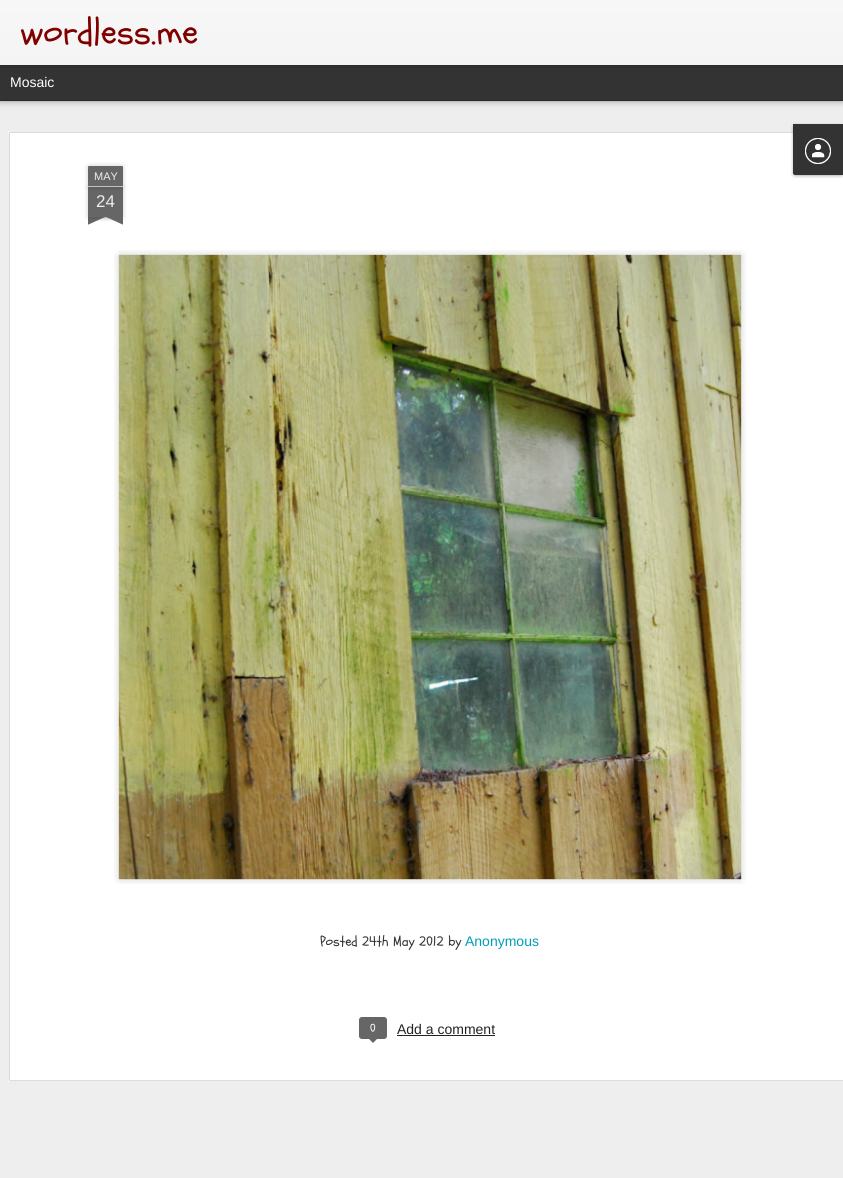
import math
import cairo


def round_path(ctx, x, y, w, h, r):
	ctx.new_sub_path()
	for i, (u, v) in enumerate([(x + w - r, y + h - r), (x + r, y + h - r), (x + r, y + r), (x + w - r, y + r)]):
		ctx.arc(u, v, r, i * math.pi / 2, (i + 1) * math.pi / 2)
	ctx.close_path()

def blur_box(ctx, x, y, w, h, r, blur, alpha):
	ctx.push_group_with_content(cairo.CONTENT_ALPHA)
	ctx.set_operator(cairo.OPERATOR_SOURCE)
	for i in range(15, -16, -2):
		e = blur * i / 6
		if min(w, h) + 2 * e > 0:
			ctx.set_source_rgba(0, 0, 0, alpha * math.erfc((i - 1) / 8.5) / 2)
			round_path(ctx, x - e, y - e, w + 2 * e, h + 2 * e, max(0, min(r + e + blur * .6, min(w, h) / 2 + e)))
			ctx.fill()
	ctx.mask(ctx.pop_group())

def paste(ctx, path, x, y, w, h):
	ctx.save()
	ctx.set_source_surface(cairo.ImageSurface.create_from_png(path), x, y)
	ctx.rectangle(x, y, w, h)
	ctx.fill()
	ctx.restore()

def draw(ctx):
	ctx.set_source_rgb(0.2, 0.2, 0.2)
	ctx.paint()
	ctx.set_source_rgb(0.933, 0.933, 0.933)
	ctx.rectangle(0, 101, 843, 1077)
	ctx.fill()
	ctx.set_source_rgb(0, 0, 0)
	blur_box(ctx, 0, 65, 843, 35, 0, 4, 0.5)
	ctx.set_source_rgb(0.2, 0.2, 0.2)
	ctx.rectangle(0, 65, 843, 35)
	ctx.fill()
	ctx.set_source_rgb(0, 0, 0)
	blur_box(ctx, 0, 0, 843, 65, 0, 2.5, 0.3)
	gradient = cairo.LinearGradient(0, 0, 0, 65)
	gradient.add_color_stop_rgba(0, 0.969, 0.969, 0.969, 1)
	gradient.add_color_stop_rgba(1, 0.957, 0.957, 0.957, 1)
	ctx.set_source(gradient)
	ctx.rectangle(0, 0, 843, 65)
	ctx.fill()
	ctx.select_font_face('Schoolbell')
	ctx.set_font_size(36)
	ctx.set_source_rgb(0.502, 0, 0)
	ctx.move_to(20, 44)
	ctx.show_text('wordless.me')
	ctx.select_font_face('Liberation Sans')
	ctx.set_font_size(14)
	ctx.set_source_rgb(1, 1, 1)
	ctx.move_to(10, 87)
	ctx.show_text('Mosaic')
	ctx.rectangle(8, 131, 835, 951)
	ctx.fill()
	paste(ctx, 'media/2.png', 8, 131, 835, 951)
	ctx.set_source_rgb(0, 0, 0)
	blur_box(ctx, 793, 125, 50, 51, 2, 1.5, 0.3)
	ctx.set_source_rgb(0.2, 0.2, 0.2)
	ctx.new_path()
	ctx.move_to(793, 124)
	ctx.line_to(843, 124)
	ctx.line_to(843, 175)
	ctx.line_to(795, 175)
	ctx.curve_to(794, 175, 793, 174, 793, 173)
	ctx.close_path()
	ctx.fill()
	paste(ctx, 'media/1.png', 805, 138, 26, 26)
	ctx.set_source_rgb(0, 0, 0)
	blur_box(ctx, 88, 187, 35, 30, 0, 2.5, 0.2)
	ctx.set_source_rgb(0.4, 0.4, 0.4)
	ctx.rectangle(88, 187, 35, 30)
	ctx.fill()
	ctx.set_source_rgb(0, 0, 0)
	blur_box(ctx, 88, 166, 35, 21, 1, 2.5, 0.2)
	ctx.set_source_rgb(0.4, 0.4, 0.4)
	ctx.new_path()
	ctx.move_to(89, 166)
	ctx.line_to(122, 166)
	ctx.curve_to(122.5, 166, 123, 166.5, 123, 167)
	ctx.line_to(123, 187)
	ctx.line_to(88, 187)
	ctx.line_to(88, 167)
	ctx.curve_to(88, 166.5, 88.5, 166, 89, 166)
	ctx.close_path()
	ctx.fill()
	ctx.set_source_rgb(0.761, 0.761, 0.761)
	ctx.rectangle(88, 186, 35, 1)
	ctx.fill()
	ctx.set_font_size(11)
	ctx.set_source_rgb(0.933, 0.933, 0.933)
	ctx.move_to(94, 180)
	ctx.show_text('MAY')
	ctx.set_font_size(17)
	ctx.move_to(96, 207)
	ctx.show_text('24')
	ctx.save()
	ctx.rectangle(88, 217, 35, 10)
	ctx.clip()
	ctx.set_source_rgb(0, 0, 0)
	blur_box(ctx, 79, 207, 50, 10, 0, 2.5, 0.2)
	ctx.restore()
	ctx.save()
	ctx.rectangle(88, 217, 35, 10)
	ctx.clip()
	ctx.set_source_rgb(0.4, 0.4, 0.4)
	ctx.new_path()
	ctx.move_to(79, 218)
	ctx.line_to(125, 197)
	ctx.line_to(129, 206)
	ctx.line_to(83, 227)
	ctx.close_path()
	ctx.fill()
	ctx.restore()
	ctx.save()
	ctx.rectangle(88, 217, 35, 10)
	ctx.clip()
	ctx.set_source_rgb(0, 0, 0)
	blur_box(ctx, 82, 207, 50, 10, 0, 2.5, 0.2)
	ctx.restore()
	ctx.save()
	ctx.rectangle(88, 217, 35, 10)
	ctx.clip()
	ctx.set_source_rgb(0.4, 0.4, 0.4)
	ctx.new_path()
	ctx.move_to(86, 197)
	ctx.line_to(132, 218)
	ctx.line_to(128, 227)
	ctx.line_to(82, 206)
	ctx.close_path()
	ctx.fill()
	ctx.restore()
	paste(ctx, 'media/3.png', 114, 250, 632, 634)
	paste(ctx, 'media/4.png', 118, 254, 624, 626)
	ctx.select_font_face('Schoolbell')
	ctx.set_font_size(14)
	ctx.set_source_rgb(0.2, 0.2, 0.2)
	ctx.move_to(320, 946)
	ctx.show_text('Posted 24th May 2012 by')
	ctx.select_font_face('Liberation Sans')
	ctx.set_source_rgb(0, 0.62, 0.722)
	ctx.move_to(465, 946)
	ctx.show_text('Anonymous')
	ctx.set_source_rgb(0.4, 0.4, 0.4)
	round_path(ctx, 359.5, 1017.5, 27, 21, 2.5)
	ctx.fill_preserve()
	ctx.set_line_width(1)
	ctx.stroke()
	ctx.select_font_face('Schoolbell')
	ctx.set_font_size(12)
	ctx.set_source_rgb(1, 1, 1)
	ctx.move_to(370, 1032)
	ctx.show_text('0')
	ctx.set_source_rgb(0.4, 0.4, 0.4)
	ctx.new_path()
	ctx.move_to(368, 1038)
	ctx.line_to(378, 1038)
	ctx.line_to(373, 1043)
	ctx.close_path()
	ctx.fill()
	ctx.select_font_face('Liberation Sans')
	ctx.set_font_size(14)
	ctx.set_source_rgb(0.133, 0.133, 0.133)
	ctx.move_to(397, 1034)
	ctx.show_text('Add a comment')
	ctx.rectangle(397, 1035, 98, 1)
	ctx.fill()


surface = cairo.ImageSurface(cairo.FORMAT_RGB24, 843, 1178)
ctx = cairo.Context(surface)
options = cairo.FontOptions()
options.set_hint_metrics(cairo.HINT_METRICS_OFF)
options.set_hint_style(cairo.HINT_STYLE_NONE)
ctx.set_font_options(options)
ctx.set_miter_limit(4)
draw(ctx)
surface.write_to_png('image.png')
